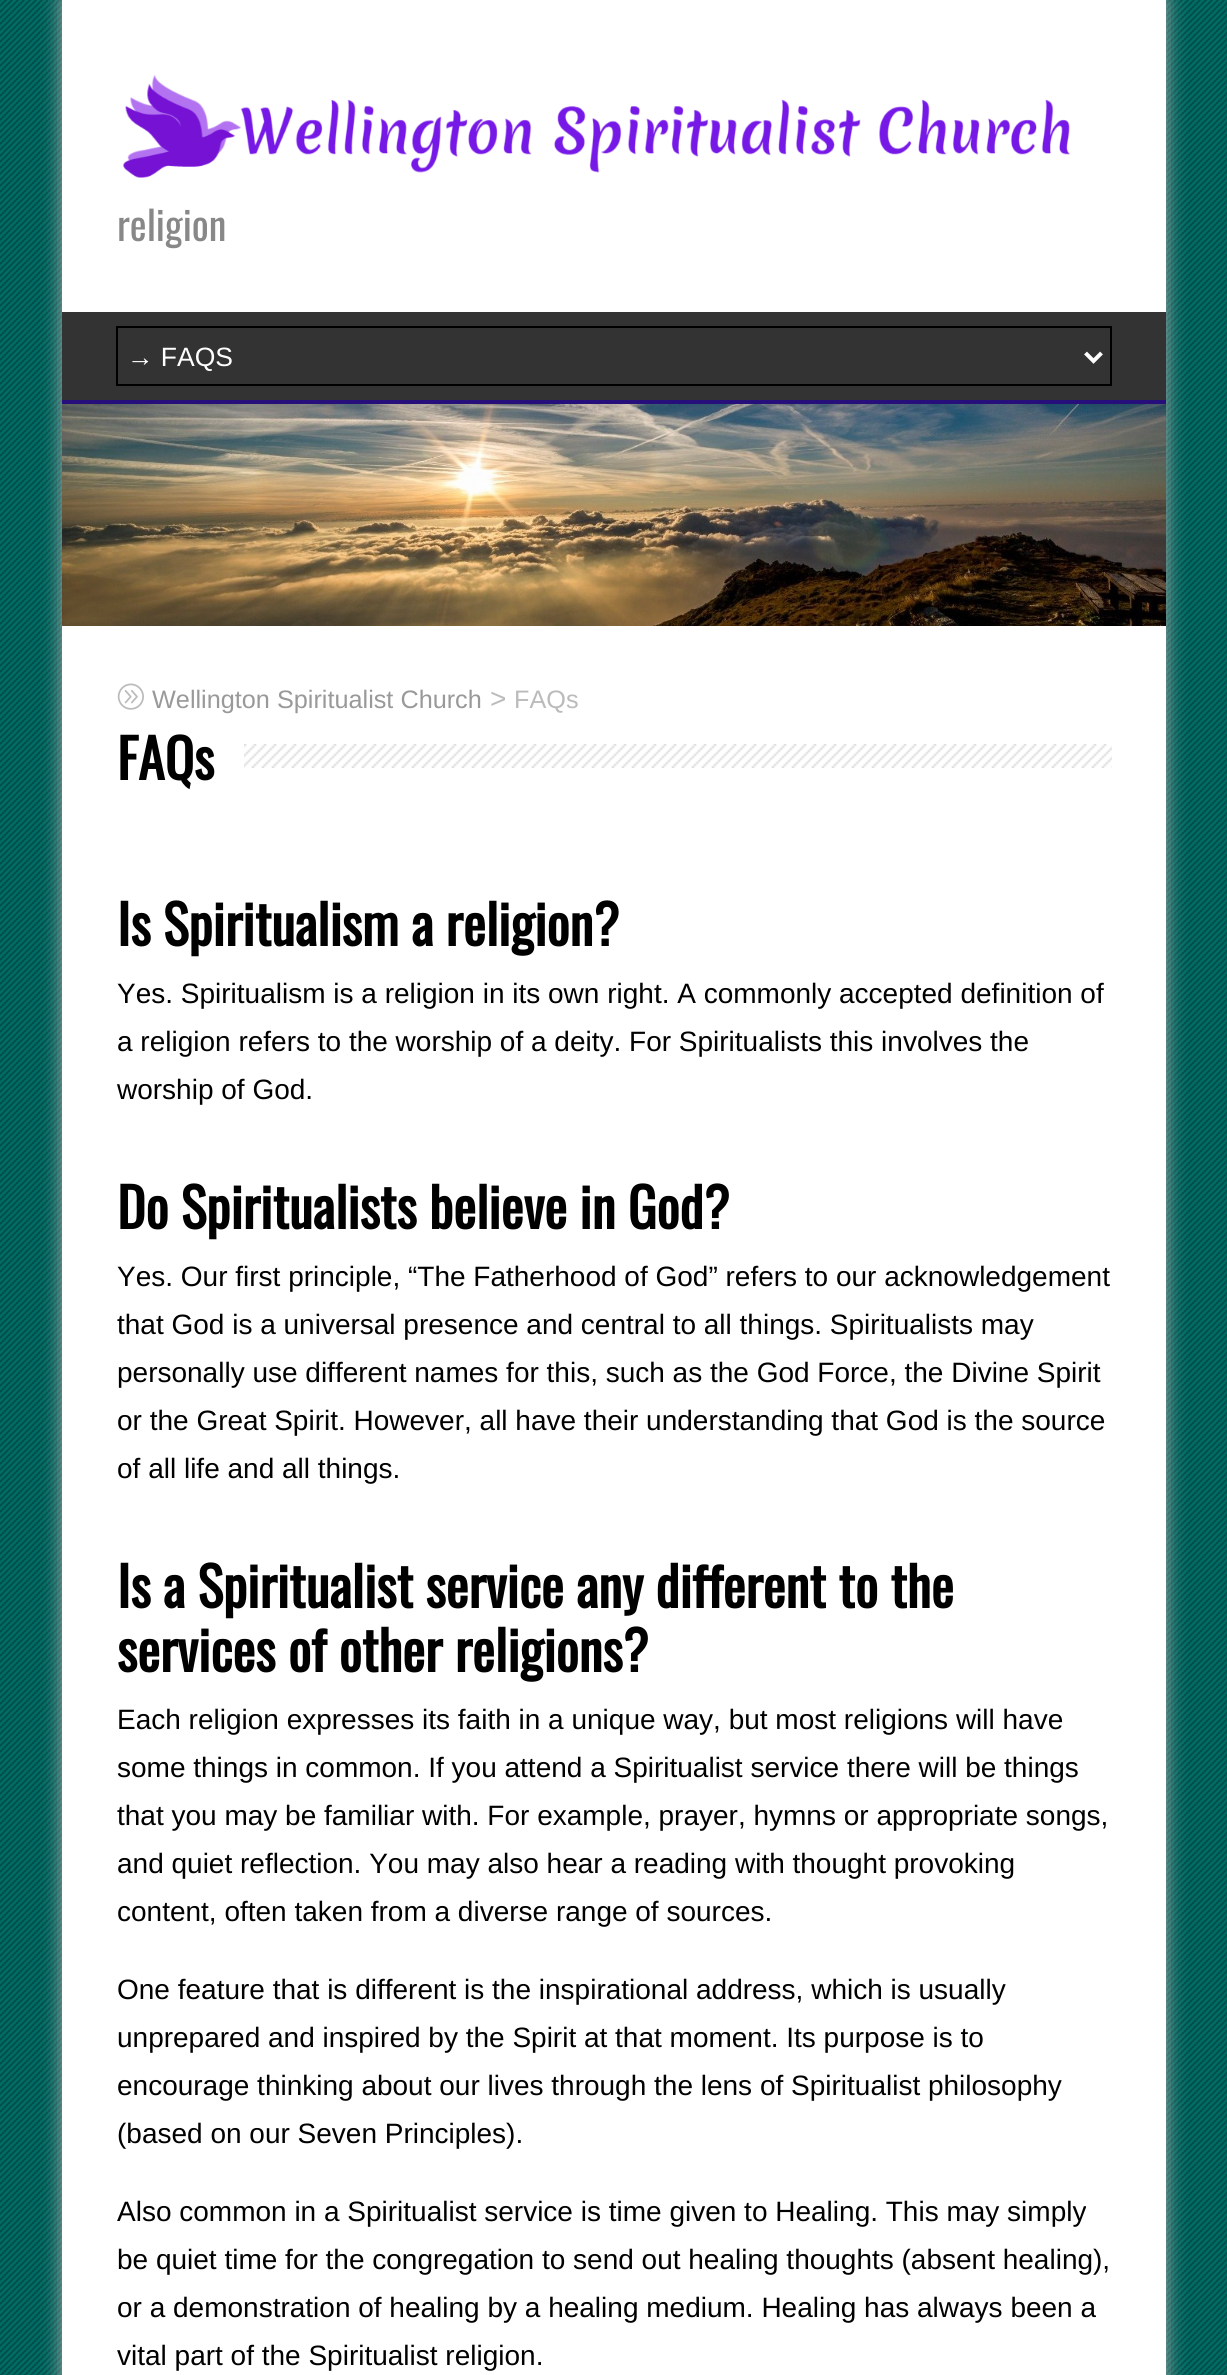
import math
import cairo


def round_path(ctx, x, y, w, h, r):
	ctx.new_sub_path()
	for i, (u, v) in enumerate([(x + w - r, y + h - r), (x + r, y + h - r), (x + r, y + r), (x + w - r, y + r)]):
		ctx.arc(u, v, r, i * math.pi / 2, (i + 1) * math.pi / 2)
	ctx.close_path()

def blur_box(ctx, x, y, w, h, r, blur, alpha):
	ctx.push_group_with_content(cairo.CONTENT_ALPHA)
	ctx.set_operator(cairo.OPERATOR_SOURCE)
	for i in range(15, -16, -2):
		e = blur * i / 6
		if min(w, h) + 2 * e > 0:
			ctx.set_source_rgba(0, 0, 0, alpha * math.erfc((i - 1) / 8.5) / 2)
			round_path(ctx, x - e, y - e, w + 2 * e, h + 2 * e, max(0, min(r + e + blur * .6, min(w, h) / 2 + e)))
			ctx.fill()
	ctx.mask(ctx.pop_group())

def paste(ctx, path, x, y, w, h):
	ctx.save()
	ctx.set_source_surface(cairo.ImageSurface.create_from_png(path), x, y)
	ctx.rectangle(x, y, w, h)
	ctx.fill()
	ctx.restore()

def draw(ctx):
	ctx.set_source_rgb(0, 0.447, 0.42)
	ctx.paint()
	paste(ctx, 'media/1.png', 0, 0, 1227, 2375)
	ctx.set_source_rgb(0.667, 0.667, 0.667)
	blur_box(ctx, 62, 0, 1104, 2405, 0, 10, 1)
	ctx.set_source_rgb(1, 1, 1)
	ctx.rectangle(62, 0, 1104, 2375)
	ctx.fill()
	paste(ctx, 'media/2.png', 123, 74, 947, 104)
	ctx.select_font_face('Oswald')
	ctx.set_font_size(40)
	ctx.set_source_rgb(0.533, 0.533, 0.533)
	ctx.move_to(117, 241)
	ctx.show_text('religion')
	ctx.set_source_rgb(0.2, 0.2, 0.2)
	ctx.rectangle(62, 312, 1104, 88)
	ctx.fill()
	ctx.set_source_rgb(0.149, 0.059, 0.478)
	ctx.rectangle(62, 400, 1104, 4)
	ctx.fill()
	ctx.rectangle(117, 327, 994, 58)
	ctx.set_source_rgb(0, 0, 0)
	ctx.stroke()
	ctx.new_path()
	ctx.move_to(1085.5, 353)
	ctx.line_to(1093.5, 361)
	ctx.line_to(1101.5, 353)
	ctx.set_source_rgb(1, 1, 1)
	ctx.set_line_width(4)
	ctx.stroke()
	ctx.select_font_face('Liberation Sans')
	ctx.set_font_size(26.5)
	ctx.move_to(127, 366)
	ctx.show_text('→ FAQS')
	paste(ctx, 'media/3.png', 62, 404, 1104, 222)
	paste(ctx, 'media/4.png', 117, 683, 27, 27)
	ctx.set_font_size(25.25)
	ctx.set_source_rgb(0.6, 0.6, 0.6)
	ctx.move_to(152, 708)
	ctx.show_text('Wellington Spiritualist Church')
	ctx.set_font_size(28)
	ctx.set_source_rgb(0.733, 0.733, 0.733)
	ctx.move_to(490, 708)
	ctx.show_text('>')
	ctx.set_font_size(25.25)
	ctx.move_to(514, 708)
	ctx.show_text('FAQs')
	paste(ctx, 'media/5.png', 244, 744, 868, 24)
	ctx.select_font_face('Oswald', cairo.FONT_SLANT_NORMAL, cairo.FONT_WEIGHT_BOLD)
	ctx.set_font_size(54)
	ctx.set_source_rgb(0, 0, 0)
	ctx.move_to(117, 780)
	ctx.show_text('FAQs')
	ctx.move_to(117, 946)
	ctx.show_text('Is Spiritualism a religion?')
	ctx.select_font_face('Liberation Sans')
	ctx.set_font_size(28)
	for x, y, s in [
		(117, 1003, 'Yes. Spiritualism is a religion in its own right. A commonly accepted definition of'),
		(117, 1051, 'a religion refers to the worship of a deity. For Spiritualists this involves the'),
		(117, 1099, 'worship of God.'),
	]:
		ctx.move_to(x, y)
		ctx.show_text(s)
	ctx.select_font_face('Oswald', cairo.FONT_SLANT_NORMAL, cairo.FONT_WEIGHT_BOLD)
	ctx.set_font_size(54)
	ctx.move_to(117, 1229)
	ctx.show_text('Do Spiritualists believe in God?')
	ctx.select_font_face('Liberation Sans')
	ctx.set_font_size(28)
	for x, y, s in [
		(117, 1286, 'Yes. Our first principle, “The Fatherhood of God” refers to our acknowledgement'),
		(117, 1334, 'that God is a universal presence and central to all things. Spiritualists may'),
		(117, 1382, 'personally use different names for this, such as the God Force, the Divine Spirit'),
		(117, 1430, 'or the Great Spirit. However, all have their understanding that God is the source'),
		(117, 1478, 'of all life and all things.'),
	]:
		ctx.move_to(x, y)
		ctx.show_text(s)
	ctx.select_font_face('Oswald', cairo.FONT_SLANT_NORMAL, cairo.FONT_WEIGHT_BOLD)
	ctx.set_font_size(54)
	ctx.move_to(117, 1608)
	ctx.show_text('Is a Spiritualist service any different to the')
	ctx.move_to(117, 1672)
	ctx.show_text('services of other religions?')
	ctx.select_font_face('Liberation Sans')
	ctx.set_font_size(28)
	for x, y, s in [
		(117, 1729, 'Each religion expresses its faith in a unique way, but most religions will have'),
		(117, 1777, 'some things in common. If you attend a Spiritualist service there will be things'),
		(117, 1825, 'that you may be familiar with. For example, prayer, hymns or appropriate songs,'),
		(117, 1873, 'and quiet reflection. You may also hear a reading with thought provoking'),
		(117, 1921, 'content, often taken from a diverse range of sources.'),
		(117, 1999, 'One feature that is different is the inspirational address, which is usually'),
		(117, 2047, 'unprepared and inspired by the Spirit at that moment. Its purpose is to'),
		(117, 2095, 'encourage thinking about our lives through the lens of Spiritualist philosophy'),
		(117, 2143, '(based on our Seven Principles).'),
		(117, 2221, 'Also common in a Spiritualist service is time given to Healing. This may simply'),
		(117, 2269, 'be quiet time for the congregation to send out healing thoughts (absent healing),'),
		(117, 2317, 'or a demonstration of healing by a healing medium. Healing has always been a'),
		(117, 2365, 'vital part of the Spiritualist religion.'),
	]:
		ctx.move_to(x, y)
		ctx.show_text(s)


surface = cairo.ImageSurface(cairo.FORMAT_RGB24, 1227, 2375)
ctx = cairo.Context(surface)
options = cairo.FontOptions()
options.set_hint_metrics(cairo.HINT_METRICS_OFF)
options.set_hint_style(cairo.HINT_STYLE_NONE)
ctx.set_font_options(options)
ctx.set_miter_limit(4)
draw(ctx)
surface.write_to_png('image.png')
